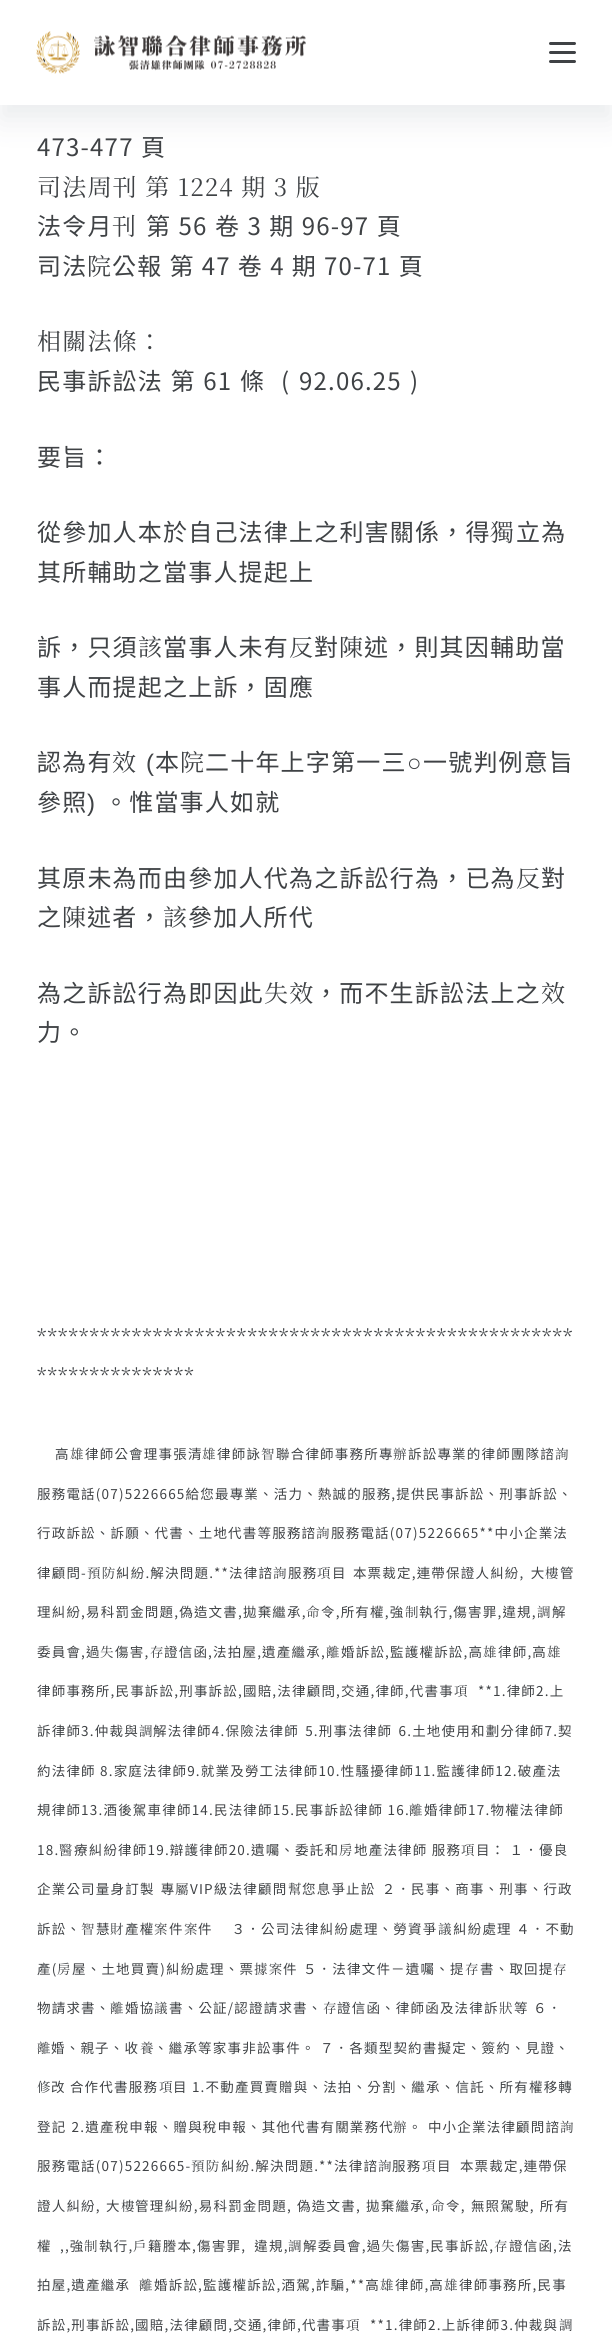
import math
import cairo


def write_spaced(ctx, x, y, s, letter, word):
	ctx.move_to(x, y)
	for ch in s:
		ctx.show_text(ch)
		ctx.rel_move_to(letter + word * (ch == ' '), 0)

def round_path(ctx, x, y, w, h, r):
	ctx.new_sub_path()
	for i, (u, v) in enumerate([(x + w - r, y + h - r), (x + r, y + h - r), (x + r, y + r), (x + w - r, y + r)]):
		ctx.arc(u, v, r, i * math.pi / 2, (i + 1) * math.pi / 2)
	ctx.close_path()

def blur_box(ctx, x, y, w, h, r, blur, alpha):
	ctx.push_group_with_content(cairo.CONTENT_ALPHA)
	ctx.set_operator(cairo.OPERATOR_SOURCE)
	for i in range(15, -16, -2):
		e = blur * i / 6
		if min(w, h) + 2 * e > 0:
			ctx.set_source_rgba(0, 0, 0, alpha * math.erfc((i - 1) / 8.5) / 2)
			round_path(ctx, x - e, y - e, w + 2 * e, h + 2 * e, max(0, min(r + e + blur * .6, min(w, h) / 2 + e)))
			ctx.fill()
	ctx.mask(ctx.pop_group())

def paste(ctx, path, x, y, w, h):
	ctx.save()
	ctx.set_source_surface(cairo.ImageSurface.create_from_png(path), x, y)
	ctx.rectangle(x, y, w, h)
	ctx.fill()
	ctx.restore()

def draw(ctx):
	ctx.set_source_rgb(1, 1, 1)
	ctx.paint()
	ctx.set_source_rgb(0.169, 0.239, 0.31)
	blur_box(ctx, 0, 15, 612, 105, 0, 15, 0.1)
	ctx.set_source_rgb(1, 1, 1)
	ctx.rectangle(0, 0, 612, 105)
	ctx.fill()
	paste(ctx, 'media/1.png', 36, 31, 270, 43)
	ctx.set_source_rgb(0.247, 0.259, 0.271)
	round_path(ctx, 549, 42, 27, 3, 1.5)
	ctx.fill()
	round_path(ctx, 549, 51, 27, 3, 1.5)
	ctx.fill()
	round_path(ctx, 549, 60, 27, 3, 1.5)
	ctx.fill()
	ctx.select_font_face('Noto Sans CJK TC')
	ctx.set_font_size(24)
	write_spaced(ctx, 37, 156, '473-477 頁', 1.2, 0.75)
	ctx.select_font_face('Noto Serif TC')
	write_spaced(ctx, 37, 196, '司法周刊 第 1224 期 3 版', 1.2, 0)
	ctx.select_font_face('Noto Sans CJK TC')
	write_spaced(ctx, 37, 235, '法令月', 1.2, 0)
	ctx.select_font_face('Noto Serif TC')
	write_spaced(ctx, 112, 235, '刊', 1.2, 0)
	ctx.select_font_face('Noto Sans CJK TC')
	write_spaced(ctx, 146, 235, '第 56 卷 3 期 96-97 頁', 1.2, 0.75)
	write_spaced(ctx, 37, 275, '司法', 1.2, 0)
	ctx.select_font_face('Noto Serif TC')
	write_spaced(ctx, 87, 275, '院', 1.2, 0)
	ctx.select_font_face('Noto Sans CJK TC')
	write_spaced(ctx, 112, 275, '公報 第 47 卷 4 期 70-71 頁', 1.2, 0.5)
	ctx.select_font_face('Noto Serif TC')
	write_spaced(ctx, 37, 350, '相關法條：', 1.2, 0)
	ctx.select_font_face('Noto Sans CJK TC')
	write_spaced(ctx, 37, 390, '民事訴訟法 第 61 條', 1.2, 1)
	for x, y, s in [
		(281, 390, '('),
		(299, 390, '92.06.25'),
		(410, 390, ')'),
		(37, 466, '要旨：'),
		(37, 541, '從參加人本於自己法律上之利害關係，得'),
	]:
		write_spaced(ctx, x, y, s, 1.2, 0)
	ctx.select_font_face('Noto Serif TC')
	write_spaced(ctx, 490, 541, '獨', 1.2, 0)
	ctx.select_font_face('Noto Sans CJK TC')
	for x, y, s in [
		(516, 541, '立為'),
		(37, 581, '其所輔助之當事人提起上'),
		(37, 656, '訴，只須'),
	]:
		write_spaced(ctx, x, y, s, 1.2, 0)
	ctx.select_font_face('Noto Serif TC')
	write_spaced(ctx, 138, 656, '該', 1.2, 0)
	ctx.select_font_face('Noto Sans CJK TC')
	write_spaced(ctx, 163, 656, '當事人未有', 1.2, 0)
	ctx.select_font_face('Noto Serif TC')
	write_spaced(ctx, 289, 656, '反', 1.2, 0)
	ctx.select_font_face('Noto Sans CJK TC')
	write_spaced(ctx, 314, 656, '對', 1.2, 0)
	ctx.select_font_face('Noto Serif TC')
	write_spaced(ctx, 339, 656, '陳', 1.2, 0)
	ctx.select_font_face('Noto Sans CJK TC')
	for x, y, s in [
		(364, 656, '述，則其因輔助當'),
		(37, 696, '事人而提起之上訴，固應'),
		(37, 771, '認為有'),
	]:
		write_spaced(ctx, x, y, s, 1.2, 0)
	ctx.select_font_face('Noto Serif TC')
	write_spaced(ctx, 112, 771, '效', 1.2, 0)
	ctx.select_font_face('Liberation Sans')
	write_spaced(ctx, 146, 771, '(', 1.2, 0)
	ctx.select_font_face('Noto Sans CJK TC')
	write_spaced(ctx, 155, 771, '本', 1.2, 0)
	ctx.select_font_face('Noto Serif TC')
	write_spaced(ctx, 180, 771, '院', 1.2, 0)
	ctx.select_font_face('Noto Sans CJK TC')
	write_spaced(ctx, 205, 771, '二十年上字第一三', 1.2, 0)
	ctx.select_font_face('Liberation Sans')
	write_spaced(ctx, 407, 771, '○', 1.2, 0)
	ctx.select_font_face('Noto Sans CJK TC')
	write_spaced(ctx, 423, 771, '一號判例意旨', 1.2, 0)
	write_spaced(ctx, 37, 811, '參照', 1.2, 0)
	ctx.select_font_face('Liberation Sans')
	write_spaced(ctx, 87, 811, ')', 1.2, 0)
	ctx.select_font_face('Noto Sans CJK TC')
	write_spaced(ctx, 104, 811, '。惟當事人如就', 1.2, 0)
	write_spaced(ctx, 37, 887, '其原未為而由參加人代為之訴訟行為，已為', 1.2, 0)
	ctx.select_font_face('Noto Serif TC')
	write_spaced(ctx, 516, 887, '反', 1.2, 0)
	ctx.select_font_face('Noto Sans CJK TC')
	write_spaced(ctx, 541, 887, '對', 1.2, 0)
	write_spaced(ctx, 37, 926, '之', 1.2, 0)
	ctx.select_font_face('Noto Serif TC')
	write_spaced(ctx, 62, 926, '陳', 1.2, 0)
	ctx.select_font_face('Noto Sans CJK TC')
	write_spaced(ctx, 87, 926, '述者，', 1.2, 0)
	ctx.select_font_face('Noto Serif TC')
	write_spaced(ctx, 163, 926, '該', 1.2, 0)
	ctx.select_font_face('Noto Sans CJK TC')
	write_spaced(ctx, 188, 926, '參加人所代', 1.2, 0)
	write_spaced(ctx, 37, 1002, '為之訴訟行為即因此', 1.2, 0)
	ctx.select_font_face('Noto Serif TC')
	write_spaced(ctx, 264, 1002, '失效', 1.2, 0)
	ctx.select_font_face('Noto Sans CJK TC')
	write_spaced(ctx, 314, 1002, '，而不生訴訟法上之', 1.2, 0)
	ctx.select_font_face('Noto Serif TC')
	write_spaced(ctx, 541, 1002, '效', 1.2, 0)
	ctx.select_font_face('Noto Sans CJK TC')
	write_spaced(ctx, 37, 1041, '力。', 1.2, 0)
	ctx.select_font_face('Noto Serif TC')
	ctx.set_font_size(19.5)
	write_spaced(ctx, 37, 1344, '***************************************************', 1.2, 0)
	write_spaced(ctx, 37, 1383, '***************', 1.2, 0)
	ctx.select_font_face('Noto Sans CJK TC')
	ctx.set_font_size(13.5)
	write_spaced(ctx, 55, 1459, '高', 1.2, 0)
	ctx.select_font_face('Noto Serif TC')
	write_spaced(ctx, 70, 1459, '雄', 1.2, 0)
	ctx.select_font_face('Noto Sans CJK TC')
	write_spaced(ctx, 85, 1459, '律師公會理事張清', 1.2, 0)
	ctx.select_font_face('Noto Serif TC')
	write_spaced(ctx, 202, 1459, '雄', 1.2, 0)
	ctx.select_font_face('Noto Sans CJK TC')
	write_spaced(ctx, 217, 1459, '律師詠', 1.2, 0)
	ctx.select_font_face('Noto Serif TC')
	write_spaced(ctx, 261, 1459, '智', 1.2, 0)
	ctx.select_font_face('Noto Sans CJK TC')
	write_spaced(ctx, 276, 1459, '聯合律師事務所專', 1.2, 0)
	ctx.select_font_face('Noto Serif TC')
	write_spaced(ctx, 393, 1459, '辦', 1.2, 0)
	ctx.select_font_face('Noto Sans CJK TC')
	write_spaced(ctx, 408, 1459, '訴訟專業的律師團隊諮', 1.2, 0)
	ctx.select_font_face('Noto Serif TC')
	write_spaced(ctx, 555, 1459, '詢', 1.2, 0)
	ctx.select_font_face('Noto Sans CJK TC')
	write_spaced(ctx, 37, 1499, '服務電話(07)5226665給您最專業、活力、熱誠的服務,提供民事訴訟、刑事訴訟、', 1.2, 0)
	write_spaced(ctx, 37, 1538, '行政訴訟、訴願、代書、土地代書等服務諮', 1.2, 0)
	ctx.select_font_face('Noto Serif TC')
	write_spaced(ctx, 316, 1538, '詢', 1.2, 0)
	ctx.select_font_face('Noto Sans CJK TC')
	write_spaced(ctx, 331, 1538, '服務電話(07)5226665**中小企業法', 1.2, 0)
	write_spaced(ctx, 37, 1578, '律顧問-', 1.2, 0)
	ctx.select_font_face('Noto Serif TC')
	write_spaced(ctx, 87, 1578, '預防', 1.2, 0)
	ctx.select_font_face('Noto Sans CJK TC')
	write_spaced(ctx, 116, 1578, '糾紛.解決問題.**法律諮', 1.2, 0)
	ctx.select_font_face('Noto Serif TC')
	write_spaced(ctx, 273, 1578, '詢', 1.2, 0)
	ctx.select_font_face('Noto Sans CJK TC')
	write_spaced(ctx, 288, 1578, '服務', 1.2, 0)
	ctx.select_font_face('Noto Serif TC')
	write_spaced(ctx, 317, 1578, '項', 1.2, 0)
	ctx.select_font_face('Noto Sans CJK TC')
	write_spaced(ctx, 332, 1578, '目 本票裁定,連帶保證人糾紛, 大', 1.2, 2)
	ctx.select_font_face('Noto Serif TC')
	write_spaced(ctx, 545, 1578, '樓', 1.2, 0)
	ctx.select_font_face('Noto Sans CJK TC')
	write_spaced(ctx, 560, 1578, '管', 1.2, 0)
	write_spaced(ctx, 37, 1617, '理糾紛,易科罰金問題,偽造文書,拋棄繼承,', 1.2, 0)
	ctx.select_font_face('Noto Serif TC')
	write_spaced(ctx, 306, 1617, '命', 1.2, 0)
	ctx.select_font_face('Noto Sans CJK TC')
	write_spaced(ctx, 321, 1617, '令,所有權,強', 1.2, 0)
	ctx.select_font_face('Noto Serif TC')
	write_spaced(ctx, 405, 1617, '制', 1.2, 0)
	ctx.select_font_face('Noto Sans CJK TC')
	write_spaced(ctx, 419, 1617, '執行,傷害罪,違規,', 1.2, 0)
	ctx.select_font_face('Noto Serif TC')
	write_spaced(ctx, 537, 1617, '調', 1.2, 0)
	ctx.select_font_face('Noto Sans CJK TC')
	write_spaced(ctx, 552, 1617, '解', 1.2, 0)
	write_spaced(ctx, 37, 1657, '委員會,過', 1.2, 0)
	ctx.select_font_face('Noto Serif TC')
	write_spaced(ctx, 100, 1657, '失', 1.2, 0)
	ctx.select_font_face('Noto Sans CJK TC')
	write_spaced(ctx, 115, 1657, '傷害,', 1.2, 0)
	ctx.select_font_face('Noto Serif TC')
	write_spaced(ctx, 150, 1657, '存', 1.2, 0)
	ctx.select_font_face('Noto Sans CJK TC')
	write_spaced(ctx, 164, 1657, '證信函,法拍屋,遺產繼承,', 1.2, 0)
	ctx.select_font_face('Noto Serif TC')
	write_spaced(ctx, 326, 1657, '離', 1.2, 0)
	ctx.select_font_face('Noto Sans CJK TC')
	write_spaced(ctx, 341, 1657, '婚訴訟,監護權訴訟,高', 1.2, 0)
	ctx.select_font_face('Noto Serif TC')
	write_spaced(ctx, 483, 1657, '雄', 1.2, 0)
	ctx.select_font_face('Noto Sans CJK TC')
	write_spaced(ctx, 498, 1657, '律師,高', 1.2, 0)
	ctx.select_font_face('Noto Serif TC')
	write_spaced(ctx, 547, 1657, '雄', 1.2, 0)
	ctx.select_font_face('Noto Sans CJK TC')
	write_spaced(ctx, 37, 1696, '律師事務所,民事訴訟,刑事訴訟,國賠,法律顧問,交通,律師,代書事', 1.2, 0)
	ctx.select_font_face('Noto Serif TC')
	write_spaced(ctx, 454, 1696, '項', 1.2, 0)
	ctx.select_font_face('Noto Sans CJK TC')
	write_spaced(ctx, 478, 1696, '**1.律師2.上', 1.2, 0)
	write_spaced(ctx, 37, 1736, '訴律師3.仲裁與', 1.2, 0)
	ctx.select_font_face('Noto Serif TC')
	write_spaced(ctx, 139, 1736, '調', 1.2, 0)
	ctx.select_font_face('Noto Sans CJK TC')
	write_spaced(ctx, 153, 1736, '解法律師4.保險法律師 5.刑事法律師 6.土地使用和劃分律師7.契', 1.2, 2)
	write_spaced(ctx, 37, 1776, '約法律師 8.家庭法律師9.就業及勞工法律師10.性騷擾律師11.監護律師12.破產法', 1.2, 0)
	write_spaced(ctx, 37, 1815, '規律師13.酒後駕車律師14.民法律師15.民事訴訟律師 16.', 1.2, 0)
	ctx.select_font_face('Noto Serif TC')
	write_spaced(ctx, 409, 1815, '離', 1.2, 0)
	ctx.select_font_face('Noto Sans CJK TC')
	write_spaced(ctx, 424, 1815, '婚律師17.物權法律師', 1.2, 0)
	write_spaced(ctx, 37, 1855, '18.', 1.2, 0)
	ctx.select_font_face('Noto Serif TC')
	write_spaced(ctx, 59, 1855, '醫', 1.2, 0)
	ctx.select_font_face('Noto Sans CJK TC')
	write_spaced(ctx, 74, 1855, '療糾紛律師19.辯護律師20.遺囑、委託和', 1.2, 0)
	ctx.select_font_face('Noto Serif TC')
	write_spaced(ctx, 339, 1855, '房', 1.2, 0)
	ctx.select_font_face('Noto Sans CJK TC')
	write_spaced(ctx, 354, 1855, '地產法律師 服務', 1.2, 0)
	ctx.select_font_face('Noto Serif TC')
	write_spaced(ctx, 461, 1855, '項', 1.2, 0)
	ctx.select_font_face('Noto Sans CJK TC')
	write_spaced(ctx, 476, 1855, '目： １．優良', 1.2, 0)
	write_spaced(ctx, 37, 1894, '企業公司量身訂製 專', 1.2, 2)
	ctx.select_font_face('Noto Serif TC')
	write_spaced(ctx, 175, 1894, '屬', 1.2, 0)
	ctx.select_font_face('Noto Sans CJK TC')
	write_spaced(ctx, 190, 1894, 'VIP級法律顧問', 1.2, 0)
	ctx.select_font_face('Noto Serif TC')
	write_spaced(ctx, 288, 1894, '幫', 1.2, 0)
	ctx.select_font_face('Noto Sans CJK TC')
	write_spaced(ctx, 302, 1894, '您息爭止訟 ２．民事、商事、刑事、行政', 1.2, 2)
	write_spaced(ctx, 37, 1934, '訴訟、', 1.2, 0)
	ctx.select_font_face('Noto Serif TC')
	write_spaced(ctx, 81, 1934, '智', 1.2, 0)
	ctx.select_font_face('Noto Sans CJK TC')
	write_spaced(ctx, 96, 1934, '慧', 1.2, 0)
	ctx.select_font_face('Noto Serif TC')
	write_spaced(ctx, 110, 1934, '財', 1.2, 0)
	ctx.select_font_face('Noto Sans CJK TC')
	write_spaced(ctx, 125, 1934, '產權', 1.2, 0)
	ctx.select_font_face('Noto Serif TC')
	write_spaced(ctx, 154, 1934, '案', 1.2, 0)
	ctx.select_font_face('Noto Sans CJK TC')
	write_spaced(ctx, 169, 1934, '件', 1.2, 0)
	ctx.select_font_face('Noto Serif TC')
	write_spaced(ctx, 184, 1934, '案', 1.2, 0)
	ctx.select_font_face('Noto Sans CJK TC')
	write_spaced(ctx, 198, 1934, '件　 ３．公司法律糾紛處理、勞資爭', 1.2, 0)
	ctx.select_font_face('Noto Serif TC')
	write_spaced(ctx, 438, 1934, '議', 1.2, 0)
	ctx.select_font_face('Noto Sans CJK TC')
	write_spaced(ctx, 453, 1934, '糾紛處理 ４．不動', 1.2, 0)
	write_spaced(ctx, 37, 1974, '產(', 1.2, 0)
	ctx.select_font_face('Noto Serif TC')
	write_spaced(ctx, 57, 1974, '房', 1.2, 0)
	ctx.select_font_face('Noto Sans CJK TC')
	write_spaced(ctx, 72, 1974, '屋、土地買賣)糾紛處理、票', 1.2, 0)
	ctx.select_font_face('Noto Serif TC')
	write_spaced(ctx, 254, 1974, '據案', 1.2, 0)
	ctx.select_font_face('Noto Sans CJK TC')
	write_spaced(ctx, 283, 1974, '件 ５．法律文件－遺囑、提', 1.2, 1)
	ctx.select_font_face('Noto Serif TC')
	write_spaced(ctx, 465, 1974, '存', 1.2, 0)
	ctx.select_font_face('Noto Sans CJK TC')
	write_spaced(ctx, 480, 1974, '書、取回提', 1.2, 0)
	ctx.select_font_face('Noto Serif TC')
	write_spaced(ctx, 553, 1974, '存', 1.2, 0)
	ctx.select_font_face('Noto Sans CJK TC')
	write_spaced(ctx, 37, 2013, '物請求書、', 1.2, 0)
	ctx.select_font_face('Noto Serif TC')
	write_spaced(ctx, 110, 2013, '離', 1.2, 0)
	ctx.select_font_face('Noto Sans CJK TC')
	write_spaced(ctx, 125, 2013, '婚協', 1.2, 0)
	ctx.select_font_face('Noto Serif TC')
	write_spaced(ctx, 154, 2013, '議', 1.2, 0)
	ctx.select_font_face('Noto Sans CJK TC')
	write_spaced(ctx, 169, 2013, '書、公証/認證請求書、', 1.2, 0)
	ctx.select_font_face('Noto Serif TC')
	write_spaced(ctx, 323, 2013, '存', 1.2, 0)
	ctx.select_font_face('Noto Sans CJK TC')
	write_spaced(ctx, 337, 2013, '證信函、律師函及法律訴', 1.2, 0)
	ctx.select_font_face('Noto Serif TC')
	write_spaced(ctx, 499, 2013, '狀', 1.2, 0)
	ctx.select_font_face('Noto Sans CJK TC')
	write_spaced(ctx, 514, 2013, '等 ６．', 1.2, 0)
	ctx.select_font_face('Noto Serif TC')
	write_spaced(ctx, 37, 2053, '離', 1.2, 0)
	ctx.select_font_face('Noto Sans CJK TC')
	write_spaced(ctx, 51, 2053, '婚、親子、收', 1.2, 0)
	ctx.select_font_face('Noto Serif TC')
	write_spaced(ctx, 140, 2053, '養', 1.2, 0)
	ctx.select_font_face('Noto Sans CJK TC')
	write_spaced(ctx, 154, 2053, '、繼承等家事非訟事件。 ７．各類型契約書擬定、簽約、見證、', 1.2, 0)
	ctx.select_font_face('Noto Serif TC')
	write_spaced(ctx, 37, 2092, '修', 1.2, 0)
	ctx.select_font_face('Noto Sans CJK TC')
	write_spaced(ctx, 51, 2092, '改 合作代書服務', 1.2, 0)
	ctx.select_font_face('Noto Serif TC')
	write_spaced(ctx, 159, 2092, '項', 1.2, 0)
	ctx.select_font_face('Noto Sans CJK TC')
	write_spaced(ctx, 173, 2092, '目 1.不動產買賣贈與、法拍、分割、繼承、信託、所有權移轉', 1.2, 0)
	write_spaced(ctx, 37, 2132, '登記 2.遺產稅申報、贈與稅申報、其他代書有關業務代', 1.2, 1)
	ctx.select_font_face('Noto Serif TC')
	write_spaced(ctx, 393, 2132, '辦', 1.2, 0)
	ctx.select_font_face('Noto Sans CJK TC')
	write_spaced(ctx, 408, 2132, '。 中小企業法律顧問諮', 1.2, 1)
	ctx.select_font_face('Noto Serif TC')
	write_spaced(ctx, 560, 2132, '詢', 1.2, 0)
	ctx.select_font_face('Noto Sans CJK TC')
	write_spaced(ctx, 37, 2171, '服務電話(07)5226665-', 1.2, 0)
	ctx.select_font_face('Noto Serif TC')
	write_spaced(ctx, 191, 2171, '預防', 1.2, 0)
	ctx.select_font_face('Noto Sans CJK TC')
	write_spaced(ctx, 221, 2171, '糾紛.解決問題.**法律諮', 1.2, 0)
	ctx.select_font_face('Noto Serif TC')
	write_spaced(ctx, 378, 2171, '詢', 1.2, 0)
	ctx.select_font_face('Noto Sans CJK TC')
	write_spaced(ctx, 392, 2171, '服務', 1.2, 0)
	ctx.select_font_face('Noto Serif TC')
	write_spaced(ctx, 422, 2171, '項', 1.2, 0)
	ctx.select_font_face('Noto Sans CJK TC')
	write_spaced(ctx, 437, 2171, '目 本票裁定,連帶保', 1.2, 4)
	write_spaced(ctx, 37, 2211, '證人糾紛, 大', 1.2, 1)
	ctx.select_font_face('Noto Serif TC')
	write_spaced(ctx, 121, 2211, '樓', 1.2, 0)
	ctx.select_font_face('Noto Sans CJK TC')
	write_spaced(ctx, 135, 2211, '管理糾紛,易科罰金問題, 偽造文書, 拋棄繼承,', 1.2, 1)
	ctx.select_font_face('Noto Serif TC')
	write_spaced(ctx, 431, 2211, '命', 1.2, 0)
	ctx.select_font_face('Noto Sans CJK TC')
	write_spaced(ctx, 446, 2211, '令, 無照駕駛, 所有', 1.2, 1)
	write_spaced(ctx, 37, 2251, '權 ,,強', 1.2, 4)
	ctx.select_font_face('Noto Serif TC')
	write_spaced(ctx, 84, 2251, '制', 1.2, 0)
	ctx.select_font_face('Noto Sans CJK TC')
	write_spaced(ctx, 99, 2251, '執行,', 1.2, 0)
	ctx.select_font_face('Noto Serif TC')
	write_spaced(ctx, 133, 2251, '戶', 1.2, 0)
	ctx.select_font_face('Noto Sans CJK TC')
	write_spaced(ctx, 148, 2251, '籍謄本,傷害罪, 違規,', 1.2, 4)
	ctx.select_font_face('Noto Serif TC')
	write_spaced(ctx, 288, 2251, '調', 1.2, 0)
	ctx.select_font_face('Noto Sans CJK TC')
	write_spaced(ctx, 303, 2251, '解委員會,過', 1.2, 0)
	ctx.select_font_face('Noto Serif TC')
	write_spaced(ctx, 381, 2251, '失', 1.2, 0)
	ctx.select_font_face('Noto Sans CJK TC')
	write_spaced(ctx, 396, 2251, '傷害,民事訴訟,', 1.2, 0)
	ctx.select_font_face('Noto Serif TC')
	write_spaced(ctx, 494, 2251, '存', 1.2, 0)
	ctx.select_font_face('Noto Sans CJK TC')
	write_spaced(ctx, 509, 2251, '證信函,法', 1.2, 0)
	write_spaced(ctx, 37, 2290, '拍屋,遺產繼承', 1.2, 0)
	ctx.select_font_face('Noto Serif TC')
	write_spaced(ctx, 139, 2290, '離', 1.2, 0)
	ctx.select_font_face('Noto Sans CJK TC')
	write_spaced(ctx, 154, 2290, '婚訴訟,監護權訴訟,酒駕,詐騙,**高', 1.2, 0)
	ctx.select_font_face('Noto Serif TC')
	write_spaced(ctx, 380, 2290, '雄', 1.2, 0)
	ctx.select_font_face('Noto Sans CJK TC')
	write_spaced(ctx, 395, 2290, '律師,高', 1.2, 0)
	ctx.select_font_face('Noto Serif TC')
	write_spaced(ctx, 444, 2290, '雄', 1.2, 0)
	ctx.select_font_face('Noto Sans CJK TC')
	write_spaced(ctx, 459, 2290, '律師事務所,民事', 1.2, 0)
	write_spaced(ctx, 37, 2330, '訴訟,刑事訴訟,國賠,法律顧問,交通,律師,代書事', 1.2, 0)
	ctx.select_font_face('Noto Serif TC')
	write_spaced(ctx, 346, 2330, '項', 1.2, 0)
	ctx.select_font_face('Noto Sans CJK TC')
	write_spaced(ctx, 370, 2330, '**1.律師2.上訴律師3.仲裁與', 1.2, 0)
	ctx.select_font_face('Noto Serif TC')
	write_spaced(ctx, 559, 2330, '調', 1.2, 0)


surface = cairo.ImageSurface(cairo.FORMAT_RGB24, 612, 2348)
ctx = cairo.Context(surface)
options = cairo.FontOptions()
options.set_hint_metrics(cairo.HINT_METRICS_OFF)
options.set_hint_style(cairo.HINT_STYLE_NONE)
ctx.set_font_options(options)
ctx.set_miter_limit(4)
draw(ctx)
surface.write_to_png('image.png')
